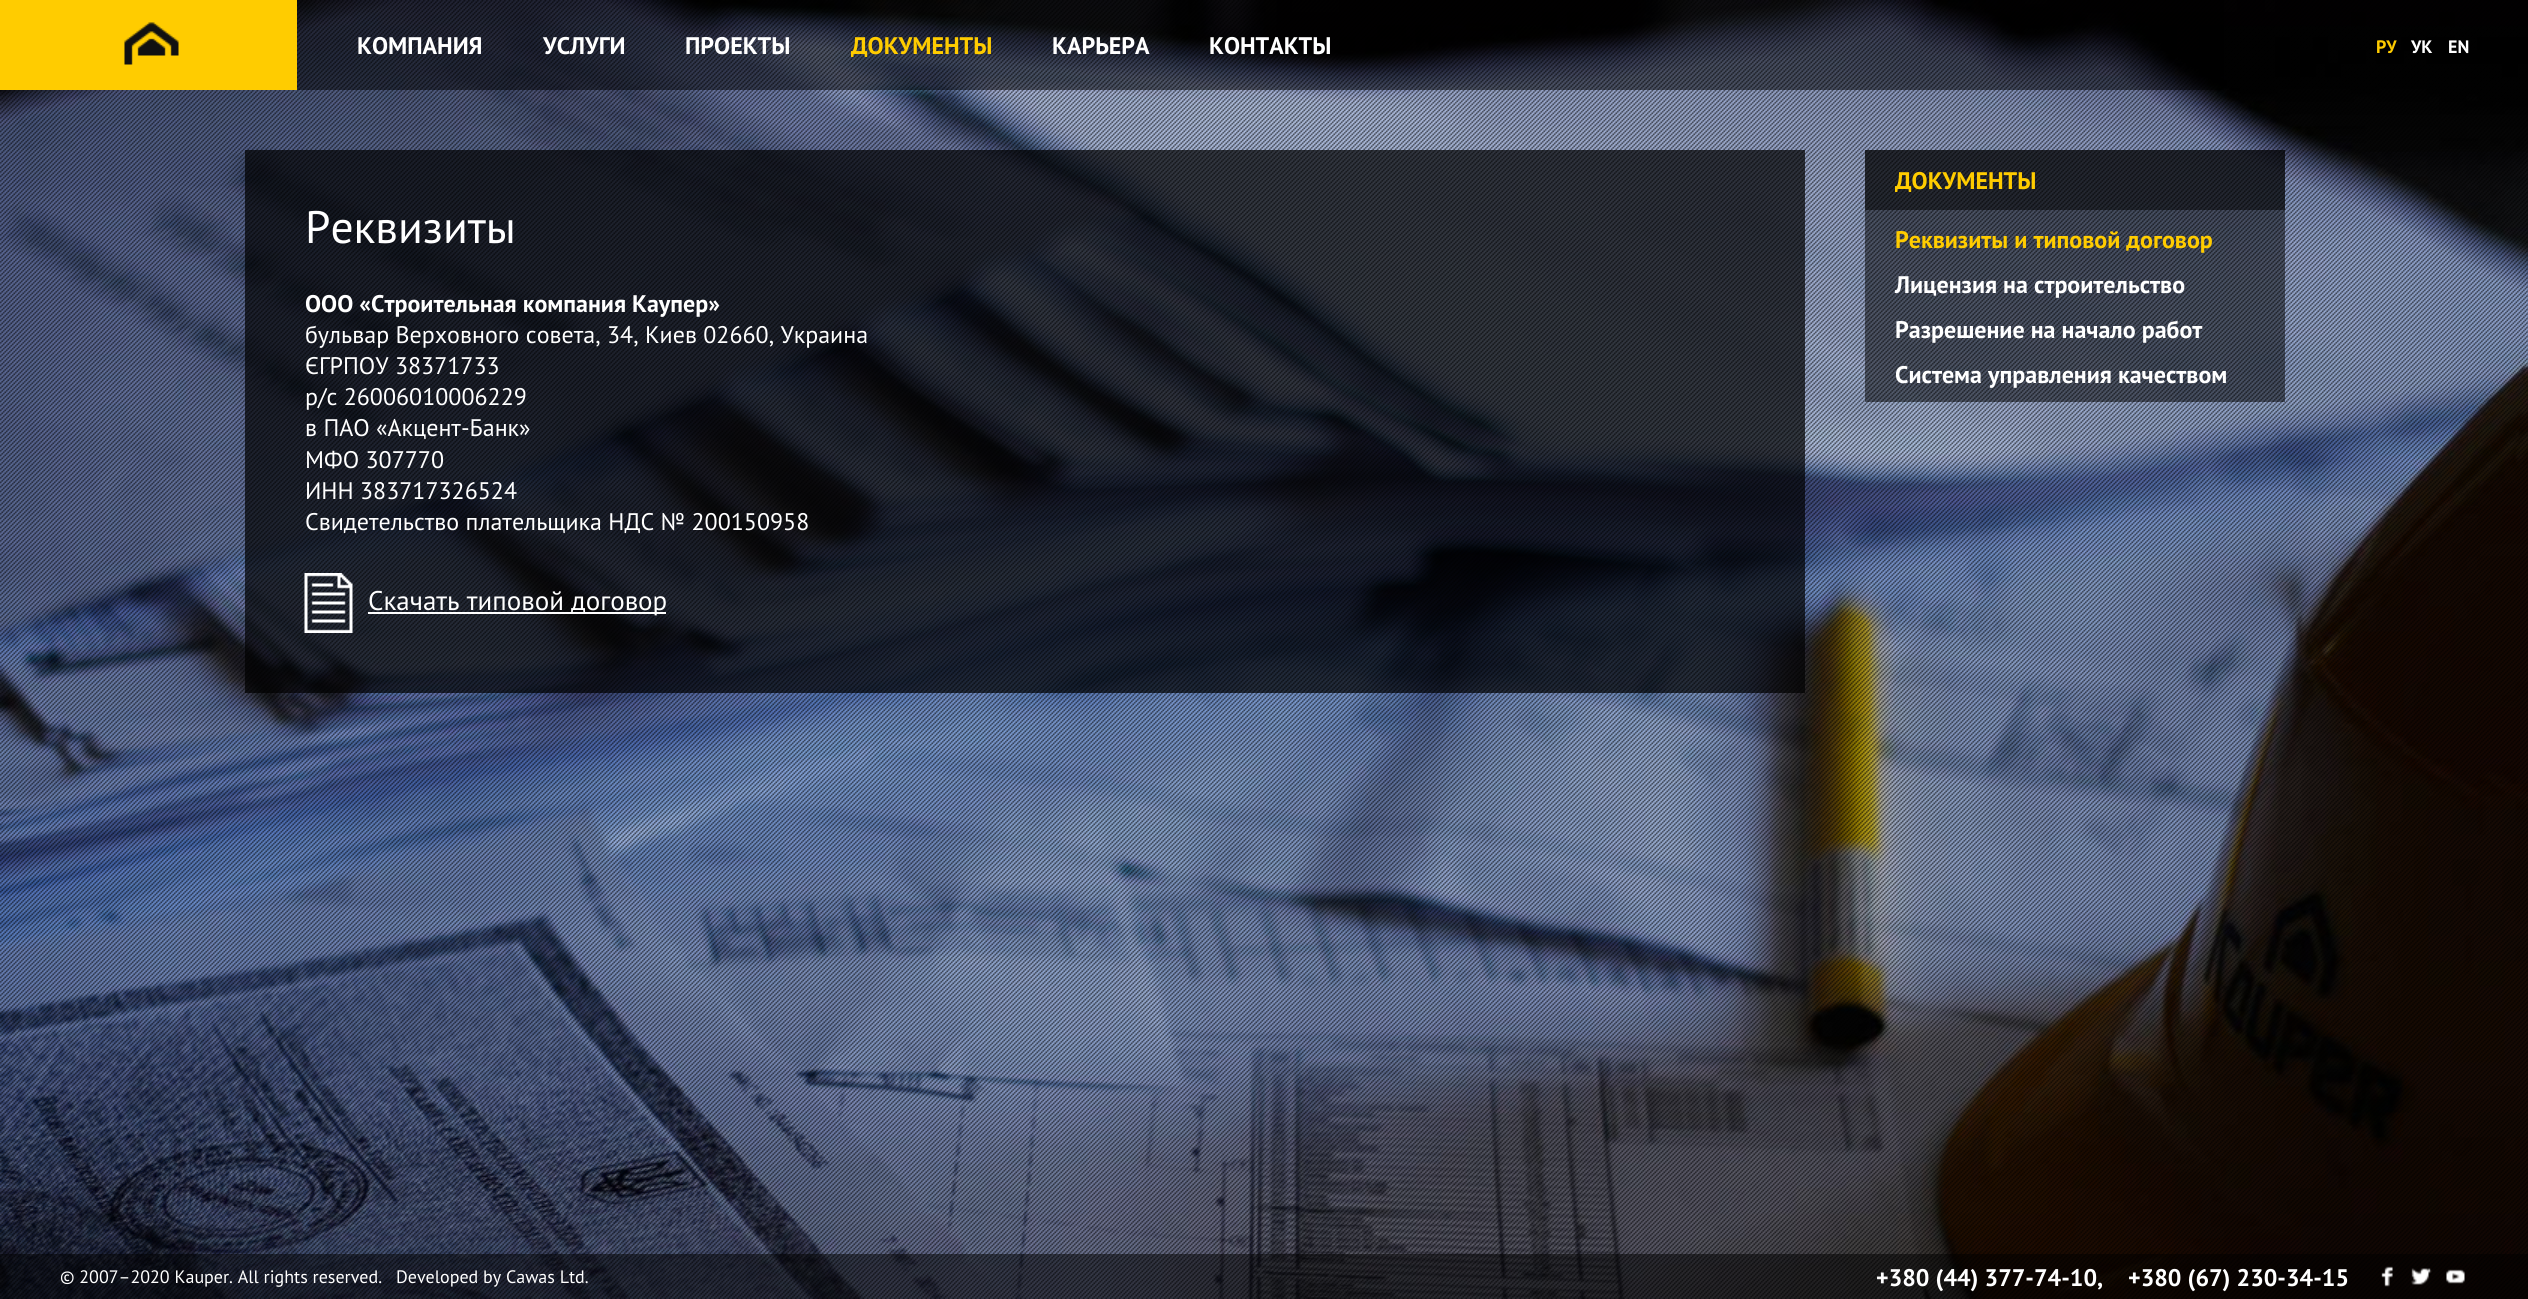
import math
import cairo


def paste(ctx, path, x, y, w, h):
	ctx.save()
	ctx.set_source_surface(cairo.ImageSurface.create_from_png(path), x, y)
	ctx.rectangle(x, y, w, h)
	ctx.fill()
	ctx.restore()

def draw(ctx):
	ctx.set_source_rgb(1, 1, 1)
	ctx.paint()
	paste(ctx, 'media/1.png', 0, 0, 2528, 1299)
	paste(ctx, 'media/2.png', 0, 0, 2528, 1299)
	ctx.set_source_rgba(0, 0, 0, 0.5)
	ctx.rectangle(297, 0, 1927, 90)
	ctx.fill()
	ctx.set_source_rgb(1, 0.8, 0)
	ctx.rectangle(0, 0, 297, 90)
	ctx.fill()
	paste(ctx, 'media/3.png', 124, 22, 55, 43)
	ctx.select_font_face('PT Sans', cairo.FONT_SLANT_NORMAL, cairo.FONT_WEIGHT_BOLD)
	ctx.set_font_size(24)
	ctx.set_source_rgb(1, 1, 1)
	for x, y, s in [
		(357, 54, 'КОМПАНИЯ'),
		(543, 54, 'УСЛУГИ'),
		(685, 54, 'ПРОЕКТЫ'),
	]:
		ctx.move_to(x, y)
		ctx.show_text(s)
	ctx.set_source_rgb(1, 0.8, 0)
	ctx.move_to(851, 54)
	ctx.show_text('ДОКУМЕНТЫ')
	ctx.set_source_rgb(1, 1, 1)
	ctx.move_to(1052, 54)
	ctx.show_text('КАРЬЕРА')
	ctx.move_to(1209, 54)
	ctx.show_text('КОНТАКТЫ')
	ctx.set_font_size(18)
	ctx.set_source_rgb(1, 0.8, 0)
	ctx.move_to(2376, 53)
	ctx.show_text('РУ')
	ctx.set_source_rgb(1, 1, 1)
	ctx.move_to(2411, 53)
	ctx.show_text('УК')
	ctx.move_to(2448, 53)
	ctx.show_text('EN')
	ctx.set_source_rgba(0, 0, 0, 0.7)
	ctx.rectangle(245, 150, 1560, 543)
	ctx.fill()
	ctx.select_font_face('PT Sans')
	ctx.set_font_size(45.5)
	ctx.set_source_rgb(1, 1, 1)
	ctx.move_to(305, 243)
	ctx.show_text('Реквизиты')
	ctx.select_font_face('PT Sans', cairo.FONT_SLANT_NORMAL, cairo.FONT_WEIGHT_BOLD)
	ctx.set_font_size(24)
	ctx.move_to(305, 312)
	ctx.show_text('ООО «Строительная компания Каупер»')
	ctx.select_font_face('PT Sans')
	for x, y, s in [
		(305, 343, 'бульвар Верховного совета, 34, Киев 02660, Украина'),
		(305, 374, 'ЄГРПОУ 38371733'),
		(305, 405, 'р/с 26006010006229'),
		(305, 436, 'в ПАО «Акцент-Банк»'),
		(305, 468, 'МФО 307770'),
		(305, 499, 'ИНН 383717326524'),
		(305, 530, 'Свидетельство плательщика НДС № 200150958'),
	]:
		ctx.move_to(x, y)
		ctx.show_text(s)
	paste(ctx, 'media/4.png', 304, 573, 49, 60)
	ctx.rectangle(368, 612, 298, 2)
	ctx.fill()
	ctx.set_font_size(27)
	ctx.move_to(368, 610)
	ctx.show_text('Скачать типовой договор')
	ctx.set_source_rgba(0, 0, 0, 0.75)
	ctx.rectangle(1865, 150, 420, 60)
	ctx.fill()
	ctx.select_font_face('PT Sans', cairo.FONT_SLANT_NORMAL, cairo.FONT_WEIGHT_BOLD)
	ctx.set_font_size(24)
	ctx.set_source_rgb(1, 0.8, 0)
	ctx.move_to(1895, 189)
	ctx.show_text('ДОКУМЕНТЫ')
	ctx.set_source_rgba(0, 0, 0, 0.5)
	ctx.rectangle(1865, 210, 420, 192)
	ctx.fill()
	ctx.set_source_rgb(1, 0.8, 0)
	ctx.move_to(1895, 248)
	ctx.show_text('Реквизиты и типовой договор')
	ctx.set_source_rgb(1, 1, 1)
	for x, y, s in [
		(1895, 293, 'Лицензия на строительство'),
		(1895, 338, 'Разрешение на начало работ'),
		(1895, 383, 'Система управления качеством'),
	]:
		ctx.move_to(x, y)
		ctx.show_text(s)
	ctx.set_source_rgba(0, 0, 0, 0.5)
	ctx.rectangle(0, 1254, 2528, 45)
	ctx.fill()
	ctx.select_font_face('PT Sans')
	ctx.set_font_size(18)
	ctx.set_source_rgb(1, 1, 1)
	ctx.move_to(60, 1283)
	ctx.show_text('© 2007–2020 Kauper. All rights reserved.')
	ctx.move_to(396, 1283)
	ctx.show_text('Developed by Cawas Ltd.')
	ctx.select_font_face('PT Sans', cairo.FONT_SLANT_NORMAL, cairo.FONT_WEIGHT_BOLD)
	ctx.set_font_size(24)
	ctx.move_to(1876, 1286)
	ctx.show_text('+380 (44) 377-74-10,')
	ctx.move_to(2128, 1286)
	ctx.show_text('+380 (67) 230-34-15')
	paste(ctx, 'media/5.png', 2381, 1266, 12, 21)
	paste(ctx, 'media/6.png', 2411, 1268, 21, 17)
	paste(ctx, 'media/7.png', 2446, 1269, 19, 15)


surface = cairo.ImageSurface(cairo.FORMAT_RGB24, 2528, 1299)
ctx = cairo.Context(surface)
options = cairo.FontOptions()
options.set_hint_metrics(cairo.HINT_METRICS_OFF)
options.set_hint_style(cairo.HINT_STYLE_NONE)
ctx.set_font_options(options)
ctx.set_miter_limit(4)
draw(ctx)
surface.write_to_png('image.png')
